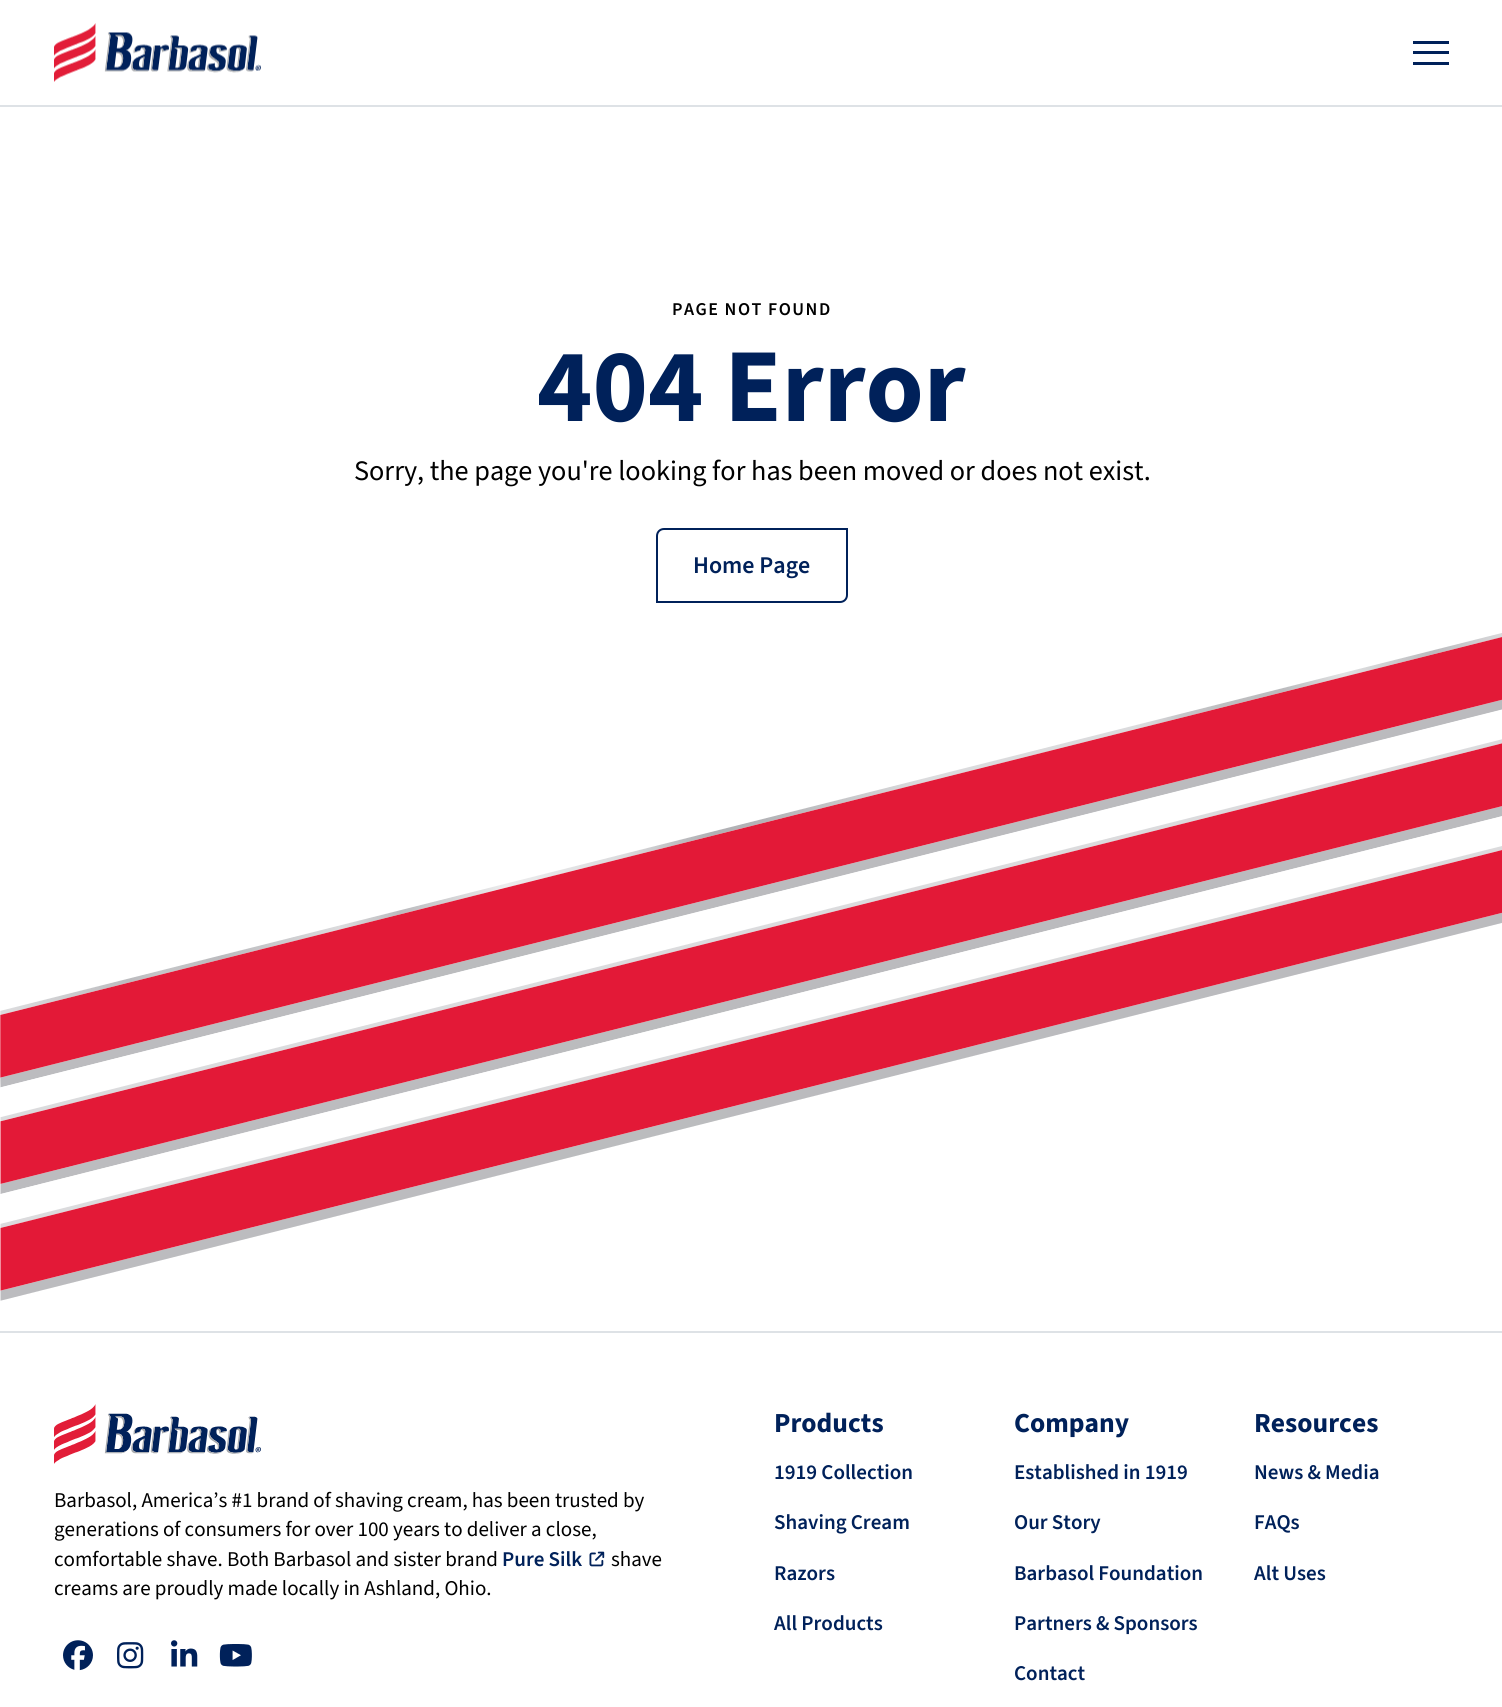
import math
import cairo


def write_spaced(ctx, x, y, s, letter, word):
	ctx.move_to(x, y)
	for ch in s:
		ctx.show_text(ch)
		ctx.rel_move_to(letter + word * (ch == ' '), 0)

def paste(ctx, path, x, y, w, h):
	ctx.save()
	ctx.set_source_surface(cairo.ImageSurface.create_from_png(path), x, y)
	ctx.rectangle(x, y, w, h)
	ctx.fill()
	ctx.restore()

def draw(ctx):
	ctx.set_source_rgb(1, 1, 1)
	ctx.paint()
	ctx.set_source_rgb(0.871, 0.886, 0.902)
	ctx.rectangle(0, 105, 1502, 2)
	ctx.fill()
	paste(ctx, 'media/1.png', 54, 23, 207, 59)
	ctx.set_source_rgb(0, 0.129, 0.353)
	ctx.rectangle(1413, 41, 36, 3)
	ctx.rectangle(1413, 51, 36, 3)
	ctx.rectangle(1413, 62, 36, 3)
	ctx.fill()
	ctx.select_font_face('Source Sans 3 SemiBold')
	ctx.set_font_size(18)
	ctx.set_source_rgb(0, 0, 0)
	write_spaced(ctx, 672, 315, 'PAGE NOT FOUND', 1.5, 0)
	ctx.select_font_face('Source Sans 3', cairo.FONT_SLANT_NORMAL, cairo.FONT_WEIGHT_BOLD)
	ctx.set_font_size(105)
	ctx.set_source_rgb(0, 0.129, 0.353)
	ctx.move_to(537, 421)
	ctx.show_text('404 Error')
	ctx.select_font_face('Source Sans 3')
	ctx.set_font_size(28.2)
	ctx.set_source_rgb(0, 0, 0)
	ctx.move_to(354, 480)
	ctx.show_text('Sorry, the page you\'re looking for has been moved or does not exist.')
	ctx.new_path()
	ctx.move_to(664, 529)
	ctx.line_to(847, 529)
	ctx.line_to(847, 595)
	ctx.curve_to(847, 599, 844, 602, 840, 602)
	ctx.line_to(657, 602)
	ctx.line_to(657, 536)
	ctx.curve_to(657, 532, 660, 529, 664, 529)
	ctx.close_path()
	ctx.set_source_rgb(0, 0.129, 0.353)
	ctx.stroke()
	ctx.select_font_face('Source Sans 3 SemiBold')
	ctx.set_font_size(24)
	ctx.move_to(693, 573)
	ctx.show_text('Home Page')
	paste(ctx, 'media/2.png', 0, 633, 1502, 668)
	ctx.set_source_rgb(0.871, 0.886, 0.902)
	ctx.rectangle(0, 1331, 1502, 2)
	ctx.fill()
	paste(ctx, 'media/3.png', 54, 1404, 207, 60)
	ctx.select_font_face('Source Sans 3')
	ctx.set_font_size(21)
	ctx.set_source_rgb(0, 0, 0)
	for x, y, s in [
		(54, 1507, 'Barbasol, America’s #1 brand of shaving cream, has been trusted by'),
		(54, 1536, 'generations of consumers for over 100 years to deliver a close,'),
		(54, 1566, 'comfortable shave. Both Barbasol and sister brand'),
	]:
		ctx.move_to(x, y)
		ctx.show_text(s)
	ctx.select_font_face('Source Sans 3 SemiBold')
	ctx.set_source_rgb(0, 0.129, 0.353)
	ctx.move_to(502, 1566)
	ctx.show_text('Pure Silk')
	paste(ctx, 'media/4.png', 589, 1551, 16, 16)
	ctx.select_font_face('Source Sans 3')
	ctx.set_source_rgb(0, 0, 0)
	ctx.move_to(611, 1566)
	ctx.show_text('shave')
	ctx.move_to(54, 1595)
	ctx.show_text('creams are proudly made locally in Ashland, Ohio.')
	paste(ctx, 'media/5.png', 63, 1640, 30, 31)
	paste(ctx, 'media/6.png', 117, 1642, 27, 27)
	paste(ctx, 'media/7.png', 171, 1640, 27, 27)
	paste(ctx, 'media/8.png', 219, 1644, 33, 23)
	ctx.select_font_face('Source Sans 3', cairo.FONT_SLANT_NORMAL, cairo.FONT_WEIGHT_BOLD)
	ctx.set_font_size(27.5)
	ctx.set_source_rgb(0, 0.129, 0.353)
	ctx.move_to(774, 1432)
	ctx.show_text('Products')
	ctx.select_font_face('Source Sans 3 SemiBold')
	ctx.set_font_size(21)
	for x, y, s in [
		(774, 1479, '1919 Collection'),
		(774, 1529, 'Shaving Cream'),
		(774, 1580, 'Razors'),
		(774, 1630, 'All Products'),
	]:
		ctx.move_to(x, y)
		ctx.show_text(s)
	ctx.select_font_face('Source Sans 3', cairo.FONT_SLANT_NORMAL, cairo.FONT_WEIGHT_BOLD)
	ctx.set_font_size(27.5)
	ctx.move_to(1014, 1432)
	ctx.show_text('Company')
	ctx.select_font_face('Source Sans 3 SemiBold')
	ctx.set_font_size(21)
	for x, y, s in [
		(1014, 1479, 'Established in 1919'),
		(1014, 1529, 'Our Story'),
		(1014, 1580, 'Barbasol Foundation'),
		(1014, 1630, 'Partners & Sponsors'),
		(1014, 1680, 'Contact'),
	]:
		ctx.move_to(x, y)
		ctx.show_text(s)
	ctx.select_font_face('Source Sans 3', cairo.FONT_SLANT_NORMAL, cairo.FONT_WEIGHT_BOLD)
	ctx.set_font_size(27.5)
	ctx.move_to(1254, 1432)
	ctx.show_text('Resources')
	ctx.select_font_face('Source Sans 3 SemiBold')
	ctx.set_font_size(21)
	for x, y, s in [
		(1254, 1479, 'News & Media'),
		(1254, 1529, 'FAQs'),
		(1254, 1580, 'Alt Uses'),
	]:
		ctx.move_to(x, y)
		ctx.show_text(s)


surface = cairo.ImageSurface(cairo.FORMAT_RGB24, 1502, 1707)
ctx = cairo.Context(surface)
options = cairo.FontOptions()
options.set_hint_metrics(cairo.HINT_METRICS_OFF)
options.set_hint_style(cairo.HINT_STYLE_NONE)
ctx.set_font_options(options)
ctx.set_miter_limit(4)
draw(ctx)
surface.write_to_png('image.png')
